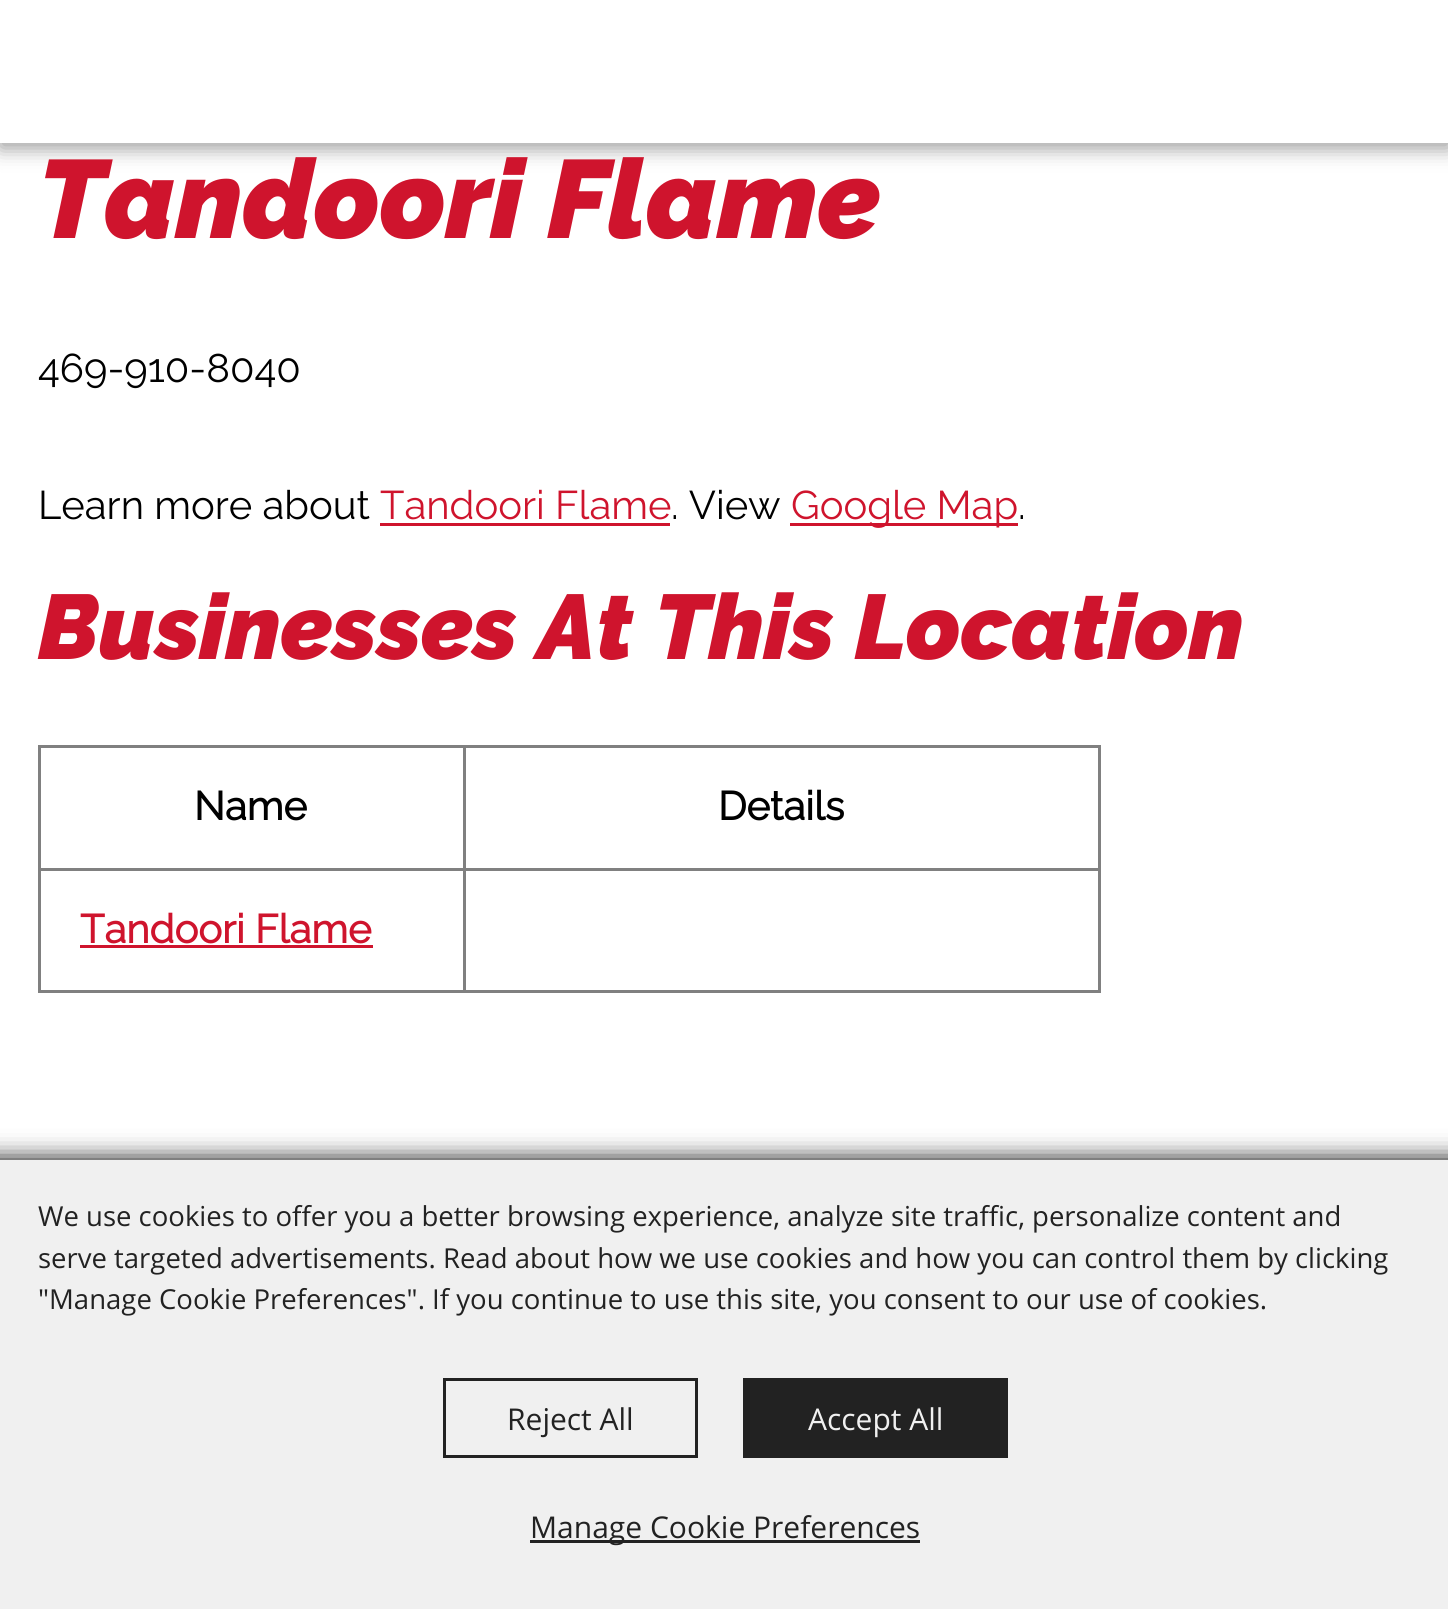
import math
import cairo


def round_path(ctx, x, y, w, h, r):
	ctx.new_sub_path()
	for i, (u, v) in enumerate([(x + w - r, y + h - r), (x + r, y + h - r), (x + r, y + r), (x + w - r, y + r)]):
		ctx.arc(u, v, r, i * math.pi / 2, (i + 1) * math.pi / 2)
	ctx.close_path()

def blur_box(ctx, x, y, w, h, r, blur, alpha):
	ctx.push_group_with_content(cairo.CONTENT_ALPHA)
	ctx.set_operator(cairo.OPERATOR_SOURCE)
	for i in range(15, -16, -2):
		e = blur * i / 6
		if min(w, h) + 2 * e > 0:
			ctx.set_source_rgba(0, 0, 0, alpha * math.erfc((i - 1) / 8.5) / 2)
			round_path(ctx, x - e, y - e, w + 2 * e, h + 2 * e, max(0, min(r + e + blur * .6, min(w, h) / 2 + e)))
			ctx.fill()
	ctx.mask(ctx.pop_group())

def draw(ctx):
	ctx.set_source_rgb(1, 1, 1)
	ctx.paint()
	ctx.set_source_rgb(0.196, 0.196, 0.196)
	blur_box(ctx, 0, 5, 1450, 143, 0, 10, 0.5)
	ctx.set_source_rgb(1, 1, 1)
	ctx.rectangle(0, 0, 1448, 143)
	ctx.fill()
	ctx.select_font_face('Raleway Black', cairo.FONT_SLANT_ITALIC)
	ctx.set_font_size(110.75)
	ctx.set_source_rgb(0.812, 0.082, 0.176)
	ctx.move_to(38, 238)
	ctx.show_text('Tandoori Flame')
	ctx.select_font_face('Raleway')
	ctx.set_font_size(40)
	ctx.set_source_rgb(0, 0, 0)
	ctx.move_to(38, 382)
	ctx.show_text('469-910-8040')
	ctx.move_to(38, 519)
	ctx.show_text('Learn more about')
	ctx.set_source_rgb(0.812, 0.082, 0.176)
	ctx.move_to(380, 519)
	ctx.show_text('Tandoori Flame')
	ctx.rectangle(380, 523, 290, 3)
	ctx.fill()
	ctx.set_source_rgb(0, 0, 0)
	ctx.move_to(671, 519)
	ctx.show_text('. View')
	ctx.set_source_rgb(0.812, 0.082, 0.176)
	ctx.rectangle(790, 523, 228, 3)
	ctx.fill()
	ctx.move_to(791, 519)
	ctx.show_text('Google Map')
	ctx.set_source_rgb(0, 0, 0)
	ctx.move_to(1018, 519)
	ctx.show_text('.')
	ctx.select_font_face('Raleway Black', cairo.FONT_SLANT_ITALIC)
	ctx.set_font_size(91.4)
	ctx.set_source_rgb(0.812, 0.082, 0.176)
	ctx.move_to(38, 659)
	ctx.show_text('Businesses At This Location')
	ctx.set_source_rgb(0.502, 0.502, 0.502)
	ctx.rectangle(38, 745, 1062, 3)
	ctx.rectangle(1098, 745, 3, 248)
	ctx.rectangle(38, 990, 1062, 3)
	ctx.rectangle(38, 745, 3, 248)
	ctx.fill()
	ctx.select_font_face('Raleway', cairo.FONT_SLANT_NORMAL, cairo.FONT_WEIGHT_BOLD)
	ctx.set_font_size(40)
	ctx.set_source_rgb(0, 0, 0)
	ctx.move_to(194, 820)
	ctx.show_text('Name')
	ctx.set_source_rgb(0.502, 0.502, 0.502)
	ctx.rectangle(463, 868, 637, 3)
	ctx.rectangle(463, 868, 3, 125)
	ctx.rectangle(38, 868, 427, 3)
	ctx.rectangle(463, 745, 3, 125)
	ctx.fill()
	ctx.set_source_rgb(0, 0, 0)
	ctx.move_to(718, 820)
	ctx.show_text('Details')
	ctx.set_source_rgb(0.812, 0.082, 0.176)
	ctx.move_to(80, 943)
	ctx.show_text('Tandoori Flame')
	ctx.rectangle(80, 945, 293, 3)
	ctx.fill()
	ctx.set_source_rgb(0, 0, 0)
	blur_box(ctx, -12, 1160, 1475, 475, 0, 12.5, 1)
	ctx.set_source_rgb(0.941, 0.941, 0.941)
	ctx.rectangle(0, 1160, 1448, 449)
	ctx.fill()
	ctx.select_font_face('Open Sans')
	ctx.set_font_size(27.5)
	ctx.set_source_rgb(0.133, 0.133, 0.133)
	for x, y, s in [
		(38, 1226, 'We use cookies to offer you a better browsing experience, analyze site traffic, personalize content and'),
		(38, 1268, 'serve targeted advertisements. Read about how we use cookies and how you can control them by clicking'),
		(38, 1309, '"Manage Cookie Preferences". If you continue to use this site, you consent to our use of cookies.'),
	]:
		ctx.move_to(x, y)
		ctx.show_text(s)
	ctx.rectangle(444.5, 1379.5, 252, 77)
	ctx.set_line_width(3)
	ctx.stroke()
	ctx.set_font_size(30)
	ctx.move_to(507, 1430)
	ctx.show_text('Reject All')
	ctx.rectangle(743, 1378, 265, 80)
	ctx.fill()
	ctx.set_source_rgb(0.941, 0.941, 0.941)
	ctx.move_to(808, 1430)
	ctx.show_text('Accept All')
	ctx.set_source_rgb(0.133, 0.133, 0.133)
	ctx.rectangle(530, 1540, 390, 3)
	ctx.fill()
	ctx.move_to(530, 1538)
	ctx.show_text('Manage Cookie Preferences')


surface = cairo.ImageSurface(cairo.FORMAT_RGB24, 1448, 1609)
ctx = cairo.Context(surface)
options = cairo.FontOptions()
options.set_hint_metrics(cairo.HINT_METRICS_OFF)
options.set_hint_style(cairo.HINT_STYLE_NONE)
ctx.set_font_options(options)
ctx.set_miter_limit(4)
draw(ctx)
surface.write_to_png('image.png')
